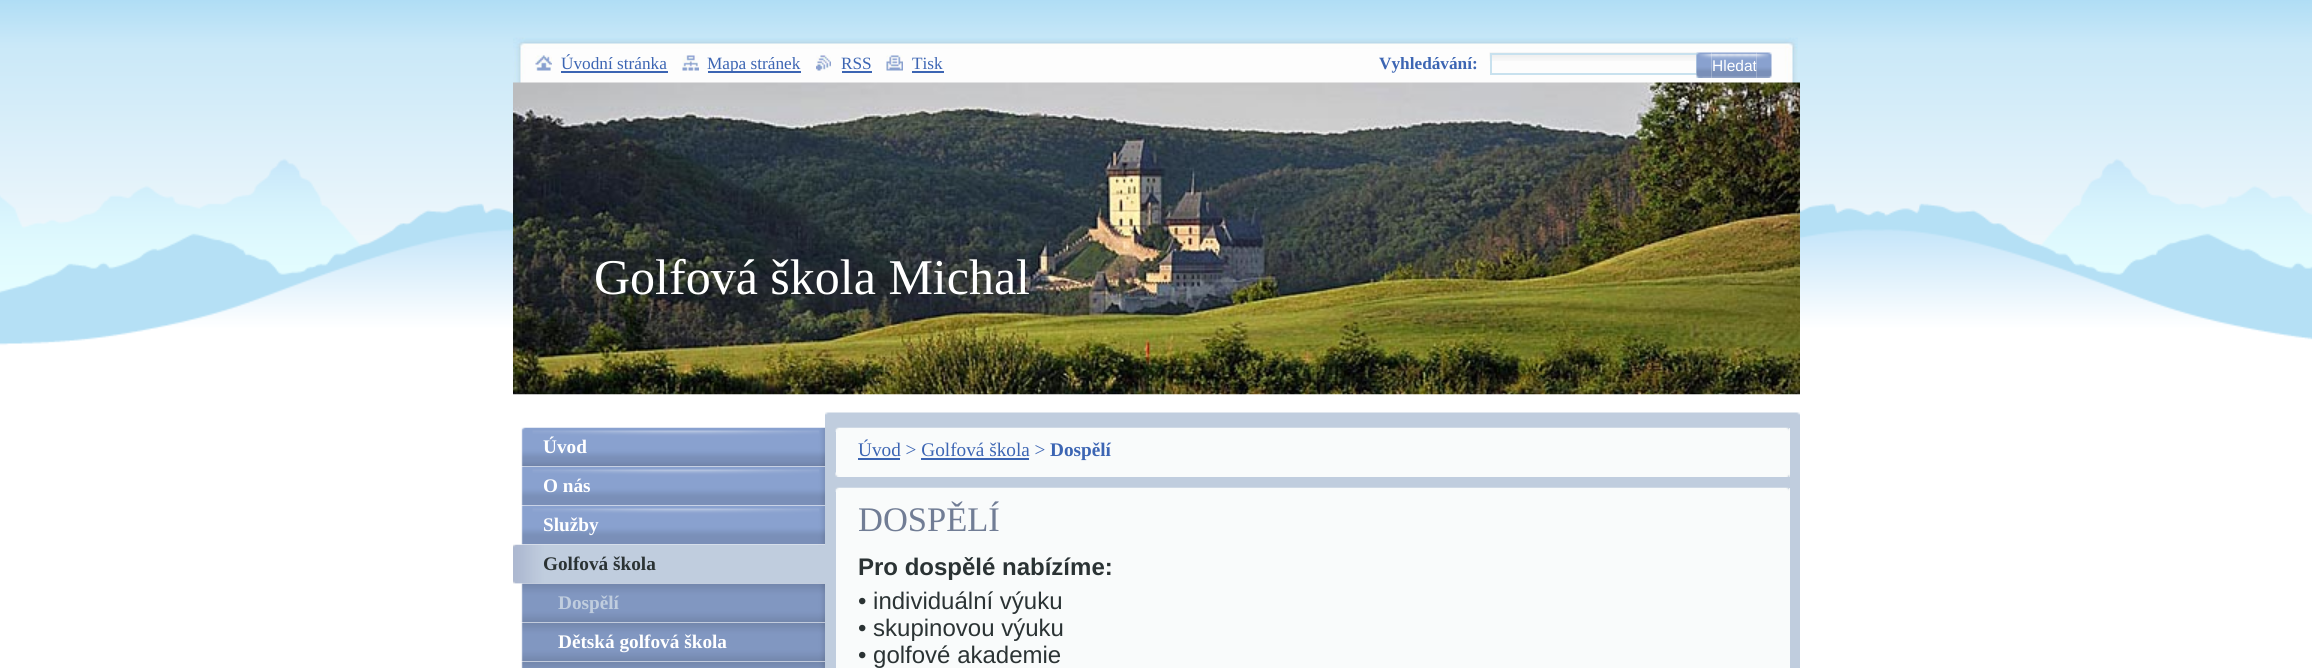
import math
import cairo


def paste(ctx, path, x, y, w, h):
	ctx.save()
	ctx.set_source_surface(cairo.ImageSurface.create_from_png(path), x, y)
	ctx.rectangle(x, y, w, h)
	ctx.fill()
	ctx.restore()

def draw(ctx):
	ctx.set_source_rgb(1, 1, 1)
	ctx.paint()
	paste(ctx, 'media/1.png', 0, 0, 2312, 369)
	paste(ctx, 'media/10.png', 513, 37, 1285, 46)
	paste(ctx, 'media/2.png', 535, 55, 17, 16)
	ctx.select_font_face('Liberation Serif')
	ctx.set_font_size(17.25)
	ctx.set_source_rgb(0.235, 0.396, 0.702)
	ctx.move_to(561, 69)
	ctx.show_text('Úvodní stránka')
	ctx.rectangle(561, 71, 107, 2)
	ctx.fill()
	paste(ctx, 'media/3.png', 682, 55, 17, 16)
	ctx.rectangle(708, 71, 93, 2)
	ctx.fill()
	ctx.move_to(707, 69)
	ctx.show_text('Mapa stránek')
	paste(ctx, 'media/4.png', 816, 55, 15, 16)
	ctx.move_to(841, 69)
	ctx.show_text('RSS')
	ctx.rectangle(842, 71, 30, 2)
	ctx.fill()
	paste(ctx, 'media/5.png', 886, 55, 17, 16)
	ctx.move_to(912, 69)
	ctx.show_text('Tisk')
	ctx.rectangle(912, 71, 32, 2)
	ctx.fill()
	ctx.select_font_face('Liberation Serif', cairo.FONT_SLANT_NORMAL, cairo.FONT_WEIGHT_BOLD)
	ctx.move_to(1379, 69)
	ctx.show_text('Vyhledávání:')
	paste(ctx, 'media/6.png', 1489, 52, 209, 9)
	ctx.rectangle(1491, 54, 206, 20)
	ctx.set_source_rgb(0.784, 0.882, 0.933)
	ctx.stroke()
	paste(ctx, 'media/7.png', 1696, 52, 16, 26)
	paste(ctx, 'media/8.png', 1711, 52, 46, 26)
	ctx.select_font_face('Liberation Sans')
	ctx.set_font_size(15.5)
	ctx.set_source_rgb(1, 1, 1)
	ctx.move_to(1712, 71)
	ctx.show_text('Hledat')
	paste(ctx, 'media/9.png', 1756, 52, 16, 26)
	paste(ctx, 'media/11.png', 513, 82, 1287, 313)
	ctx.select_font_face('Liberation Serif')
	ctx.set_font_size(50)
	ctx.move_to(594, 294)
	ctx.show_text('Golfová škola Michal')
	paste(ctx, 'media/12.png', 521, 427, 304, 40)
	ctx.select_font_face('Liberation Serif', cairo.FONT_SLANT_NORMAL, cairo.FONT_WEIGHT_BOLD)
	ctx.set_font_size(19.25)
	ctx.move_to(543, 453)
	ctx.show_text('Úvod')
	paste(ctx, 'media/13.png', 521, 466, 304, 40)
	ctx.move_to(543, 492)
	ctx.show_text('O nás')
	paste(ctx, 'media/14.png', 521, 505, 304, 40)
	ctx.move_to(543, 531)
	ctx.show_text('Služby')
	paste(ctx, 'media/15.png', 513, 544, 312, 40)
	ctx.set_source_rgb(0.169, 0.2, 0.204)
	ctx.move_to(543, 570)
	ctx.show_text('Golfová škola')
	paste(ctx, 'media/16.png', 513, 583, 312, 40)
	ctx.set_source_rgb(0.753, 0.804, 0.871)
	ctx.move_to(558, 609)
	ctx.show_text('Dospělí')
	paste(ctx, 'media/17.png', 521, 622, 304, 40)
	ctx.set_source_rgb(1, 1, 1)
	ctx.move_to(558, 648)
	ctx.show_text('Dětská golfová škola')
	paste(ctx, 'media/18.png', 521, 661, 304, 7)
	ctx.set_source_rgb(0.753, 0.804, 0.871)
	ctx.rectangle(825, 415, 975, 253)
	ctx.fill()
	paste(ctx, 'media/19.png', 825, 412, 975, 3)
	ctx.set_source_rgb(0.976, 0.984, 0.984)
	ctx.rectangle(836, 428, 954, 49)
	ctx.fill()
	paste(ctx, 'media/20.png', 835, 472, 955, 5)
	paste(ctx, 'media/21.png', 835, 427, 955, 5)
	ctx.select_font_face('Liberation Serif')
	ctx.set_source_rgb(0.235, 0.396, 0.702)
	ctx.move_to(858, 456)
	ctx.show_text('Úvod > Golfová škola >')
	ctx.rectangle(858, 458, 42, 2)
	ctx.fill()
	ctx.select_font_face('Liberation Serif', cairo.FONT_SLANT_NORMAL, cairo.FONT_WEIGHT_BOLD)
	ctx.move_to(1050, 456)
	ctx.show_text('Dospělí')
	ctx.rectangle(921, 458, 108, 2)
	ctx.fill()
	ctx.set_source_rgb(0.976, 0.984, 0.984)
	ctx.rectangle(836, 488, 954, 180)
	ctx.fill()
	paste(ctx, 'media/21.png', 835, 487, 955, 5)
	ctx.select_font_face('Liberation Serif')
	ctx.set_font_size(34.5)
	ctx.set_source_rgb(0.443, 0.49, 0.584)
	ctx.move_to(858, 531)
	ctx.show_text('DOSPĚLÍ')
	ctx.select_font_face('Liberation Sans', cairo.FONT_SLANT_NORMAL, cairo.FONT_WEIGHT_BOLD)
	ctx.set_font_size(24)
	ctx.set_source_rgb(0.169, 0.2, 0.204)
	ctx.move_to(858, 575)
	ctx.show_text('Pro dospělé nabízíme:')
	ctx.select_font_face('Liberation Sans')
	for x, y, s in [
		(858, 609, '• individuální výuku'),
		(858, 636, '• skupinovou výuku'),
		(858, 663, '• golfové akademie'),
	]:
		ctx.move_to(x, y)
		ctx.show_text(s)


surface = cairo.ImageSurface(cairo.FORMAT_RGB24, 2312, 668)
ctx = cairo.Context(surface)
options = cairo.FontOptions()
options.set_hint_metrics(cairo.HINT_METRICS_OFF)
options.set_hint_style(cairo.HINT_STYLE_NONE)
ctx.set_font_options(options)
ctx.set_miter_limit(4)
draw(ctx)
surface.write_to_png('image.png')
